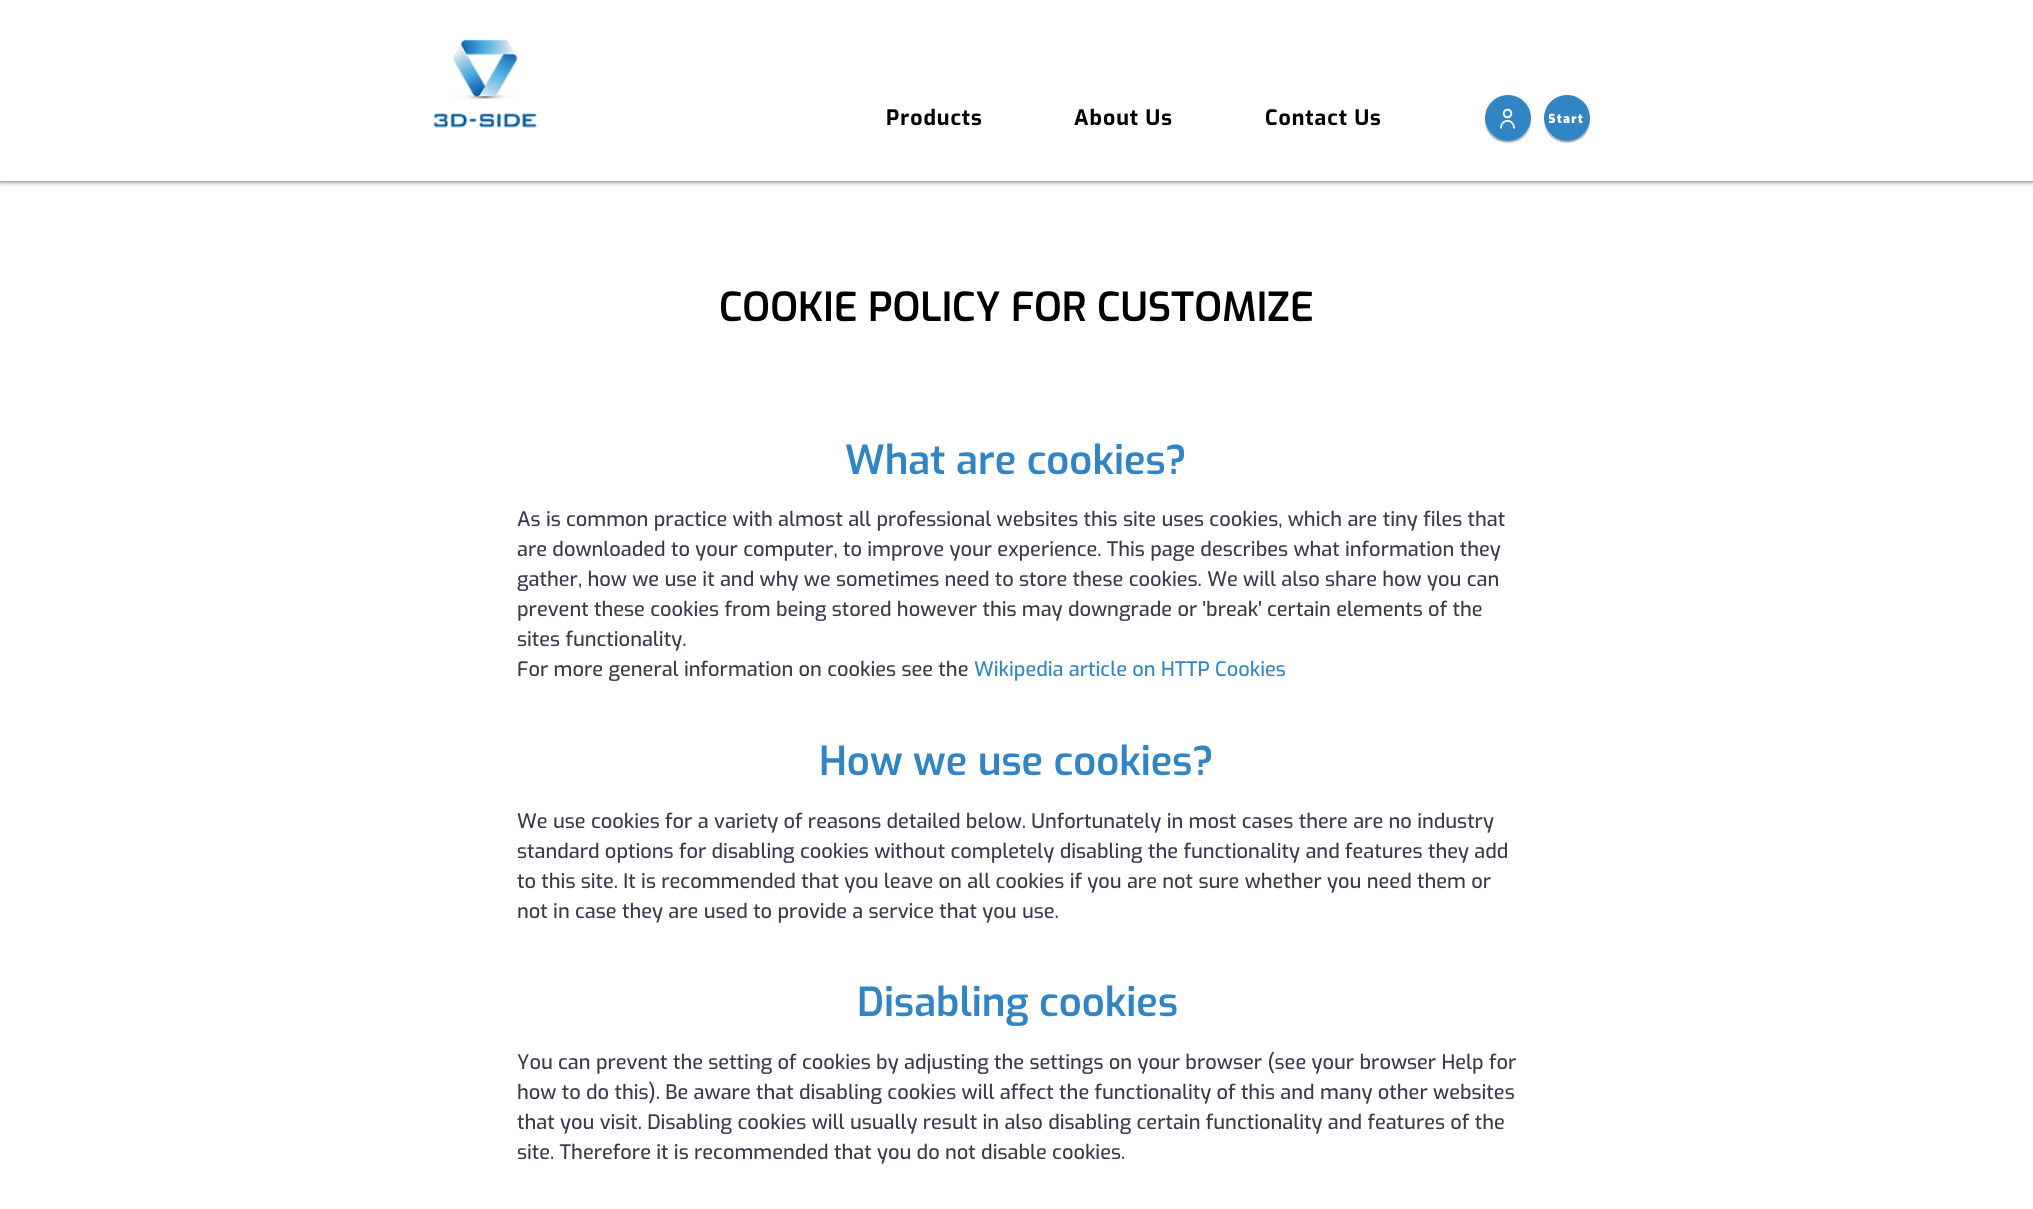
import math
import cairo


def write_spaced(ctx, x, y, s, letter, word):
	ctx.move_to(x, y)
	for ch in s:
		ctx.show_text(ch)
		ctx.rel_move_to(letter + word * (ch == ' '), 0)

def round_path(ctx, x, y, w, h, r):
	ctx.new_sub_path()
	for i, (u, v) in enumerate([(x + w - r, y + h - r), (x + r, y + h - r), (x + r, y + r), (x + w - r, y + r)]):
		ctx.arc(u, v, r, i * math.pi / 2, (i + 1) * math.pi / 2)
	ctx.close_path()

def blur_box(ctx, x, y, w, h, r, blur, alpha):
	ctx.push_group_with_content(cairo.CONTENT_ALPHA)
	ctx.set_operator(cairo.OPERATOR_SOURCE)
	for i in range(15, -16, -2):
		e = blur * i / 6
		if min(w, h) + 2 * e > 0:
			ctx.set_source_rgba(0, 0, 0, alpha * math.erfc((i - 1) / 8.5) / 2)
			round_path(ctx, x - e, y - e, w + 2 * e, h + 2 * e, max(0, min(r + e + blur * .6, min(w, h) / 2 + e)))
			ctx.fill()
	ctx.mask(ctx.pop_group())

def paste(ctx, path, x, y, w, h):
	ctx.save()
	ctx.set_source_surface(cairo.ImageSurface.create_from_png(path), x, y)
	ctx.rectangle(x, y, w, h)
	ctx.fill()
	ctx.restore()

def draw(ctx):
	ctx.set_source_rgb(1, 1, 1)
	ctx.paint()
	ctx.save()
	ctx.rectangle(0, 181, 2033, 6)
	ctx.clip()
	ctx.set_source_rgb(0, 0, 0)
	blur_box(ctx, 0, 0, 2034, 181, 0, 3, 0.7)
	ctx.restore()
	paste(ctx, 'media/1.png', 433, 39, 104, 89)
	ctx.select_font_face('Exo', cairo.FONT_SLANT_NORMAL, cairo.FONT_WEIGHT_BOLD)
	ctx.set_font_size(21.25)
	ctx.set_source_rgb(0, 0, 0)
	for x, y, s in [
		(886, 125, 'Products'),
		(1074, 125, 'About Us'),
		(1265, 125, 'Contact Us'),
	]:
		write_spaced(ctx, x, y, s, 1, 0)
	ctx.set_source_rgb(0.686, 0.702, 0.714)
	ctx.new_path()
	ctx.move_to(1531, 122)
	ctx.curve_to(1526, 149, 1486, 146, 1485, 119)
	ctx.curve_to(1484, 149, 1528, 151, 1531, 122)
	ctx.close_path()
	ctx.fill()
	ctx.set_source_rgb(0.196, 0.522, 0.769)
	ctx.arc(1508, 118, 23, 0, 2 * math.pi)
	ctx.fill()
	paste(ctx, 'media/2.png', 1500, 108, 15, 21)
	ctx.set_source_rgb(0.686, 0.702, 0.714)
	ctx.new_path()
	ctx.move_to(1590, 119)
	ctx.curve_to(1589, 146, 1549, 149, 1544, 122)
	ctx.curve_to(1547, 151, 1591, 149, 1590, 119)
	ctx.close_path()
	ctx.fill()
	ctx.set_source_rgb(0.196, 0.522, 0.769)
	ctx.arc(1567, 118, 23, 0, 2 * math.pi)
	ctx.fill()
	ctx.save()
	ctx.rectangle(1549, 110, 35, 16)
	ctx.clip()
	ctx.select_font_face('Exo Black')
	ctx.set_font_size(12.5)
	ctx.set_source_rgb(1, 1, 1)
	write_spaced(ctx, 1548, 123, 'Start', 1.25, 0)
	ctx.restore()
	ctx.select_font_face('Exo SemiBold')
	ctx.set_font_size(40)
	ctx.set_source_rgb(0, 0, 0)
	ctx.move_to(719, 321)
	ctx.show_text('COOKIE POLICY FOR CUSTOMIZE')
	ctx.set_source_rgb(0.196, 0.522, 0.769)
	ctx.move_to(845, 474)
	ctx.show_text('What are cookies?')
	ctx.select_font_face('Exo Medium')
	ctx.set_font_size(20)
	ctx.set_source_rgb(0.216, 0.231, 0.302)
	for x, y, s in [
		(517, 526, 'As is common practice with almost all professional websites this site uses cookies, which are tiny files that'),
		(517, 556, 'are downloaded to your computer, to improve your experience. This page describes what information they'),
		(517, 586, 'gather, how we use it and why we sometimes need to store these cookies. We will also share how you can'),
		(517, 616, 'prevent these cookies from being stored however this may downgrade or \'break\' certain elements of the'),
		(517, 646, 'sites functionality.'),
		(517, 676, 'For more general information on cookies see the'),
	]:
		ctx.move_to(x, y)
		ctx.show_text(s)
	ctx.set_source_rgb(0.196, 0.522, 0.769)
	ctx.move_to(974, 676)
	ctx.show_text('Wikipedia article on HTTP Cookies')
	ctx.select_font_face('Exo SemiBold')
	ctx.set_font_size(40)
	ctx.move_to(819, 775)
	ctx.show_text('How we use cookies?')
	ctx.select_font_face('Exo Medium')
	ctx.set_font_size(20)
	ctx.set_source_rgb(0.216, 0.231, 0.302)
	for x, y, s in [
		(517, 828, 'We use cookies for a variety of reasons detailed below. Unfortunately in most cases there are no industry'),
		(517, 858, 'standard options for disabling cookies without completely disabling the functionality and features they add'),
		(517, 888, 'to this site. It is recommended that you leave on all cookies if you are not sure whether you need them or'),
		(517, 918, 'not in case they are used to provide a service that you use.'),
	]:
		ctx.move_to(x, y)
		ctx.show_text(s)
	ctx.select_font_face('Exo SemiBold')
	ctx.set_font_size(40)
	ctx.set_source_rgb(0.196, 0.522, 0.769)
	ctx.move_to(857, 1016)
	ctx.show_text('Disabling cookies')
	ctx.select_font_face('Exo Medium')
	ctx.set_font_size(20)
	ctx.set_source_rgb(0.216, 0.231, 0.302)
	for x, y, s in [
		(517, 1069, 'You can prevent the setting of cookies by adjusting the settings on your browser (see your browser Help for'),
		(517, 1099, 'how to do this). Be aware that disabling cookies will affect the functionality of this and many other websites'),
		(517, 1129, 'that you visit. Disabling cookies will usually result in also disabling certain functionality and features of the'),
		(517, 1159, 'site. Therefore it is recommended that you do not disable cookies.'),
	]:
		ctx.move_to(x, y)
		ctx.show_text(s)


surface = cairo.ImageSurface(cairo.FORMAT_RGB24, 2033, 1209)
ctx = cairo.Context(surface)
options = cairo.FontOptions()
options.set_hint_metrics(cairo.HINT_METRICS_OFF)
options.set_hint_style(cairo.HINT_STYLE_NONE)
ctx.set_font_options(options)
ctx.set_miter_limit(4)
draw(ctx)
surface.write_to_png('image.png')
